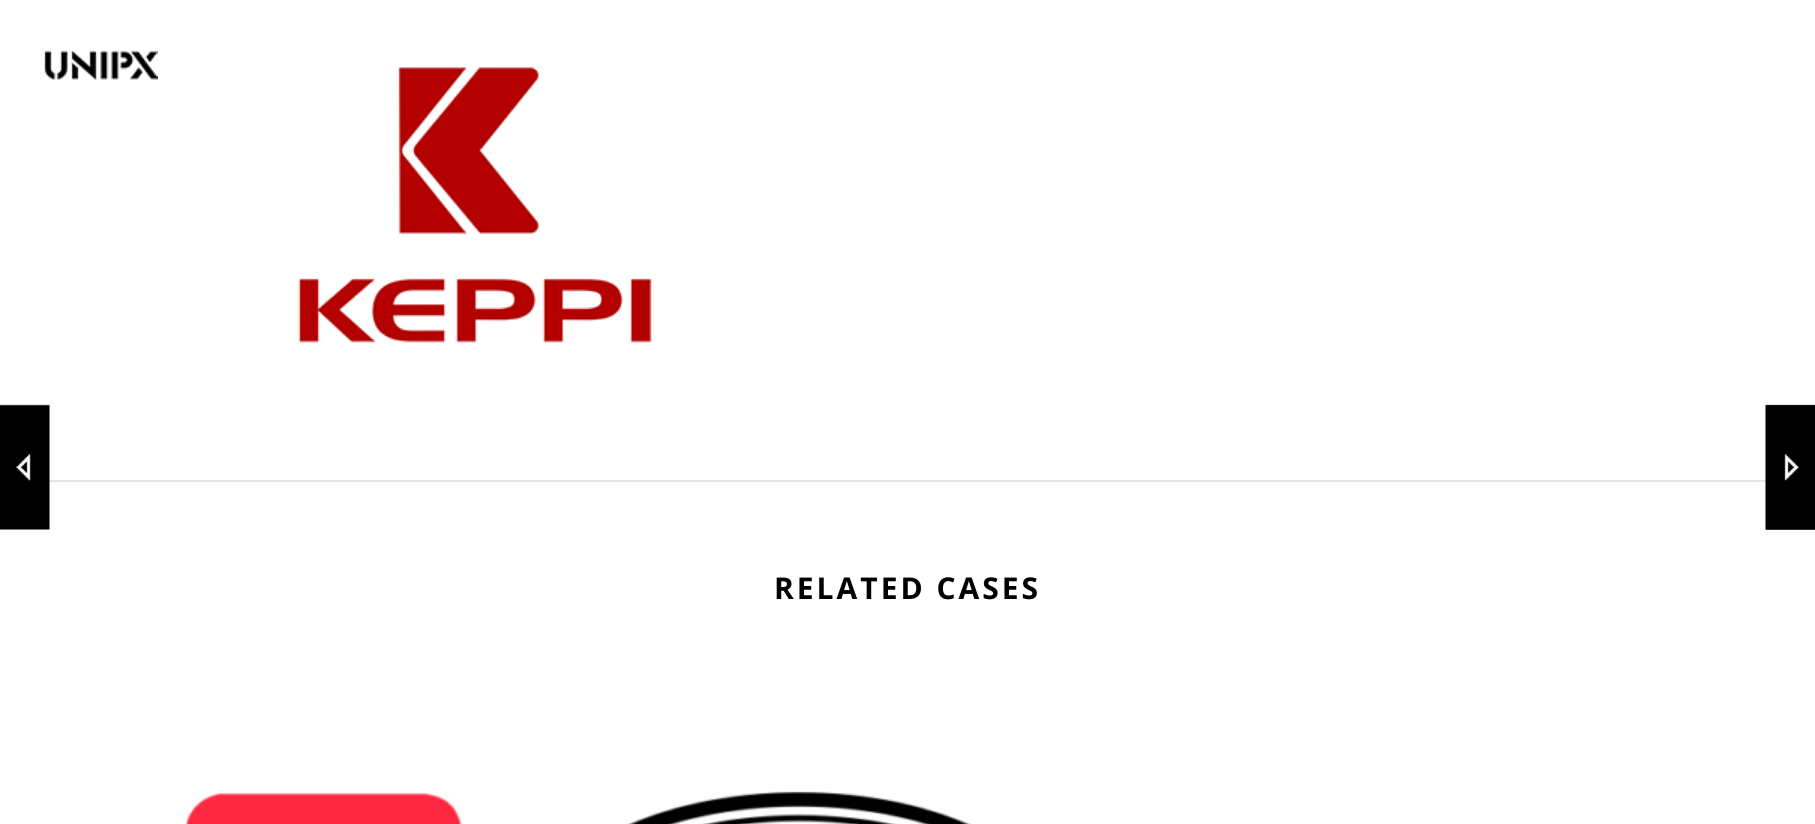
import math
import cairo


def write_spaced(ctx, x, y, s, letter, word):
	ctx.move_to(x, y)
	for ch in s:
		ctx.show_text(ch)
		ctx.rel_move_to(letter + word * (ch == ' '), 0)

def paste(ctx, path, x, y, w, h):
	ctx.save()
	ctx.set_source_surface(cairo.ImageSurface.create_from_png(path), x, y)
	ctx.rectangle(x, y, w, h)
	ctx.fill()
	ctx.restore()

def draw(ctx):
	ctx.set_source_rgb(1, 1, 1)
	ctx.paint()
	paste(ctx, 'media/1.png', 44, 50, 114, 30)
	paste(ctx, 'media/2.png', 298, 67, 354, 276)
	ctx.set_source_rgb(0.898, 0.898, 0.898)
	ctx.rectangle(49, 480, 1717, 2)
	ctx.fill()
	paste(ctx, 'media/3.png', 0, 404, 50, 126)
	ctx.set_source_rgb(0.345, 0.345, 0.345)
	ctx.rectangle(1766, 405, 49, 125)
	ctx.fill()
	paste(ctx, 'media/4.png', 1765, 404, 50, 126)
	ctx.select_font_face('Open Sans', cairo.FONT_SLANT_NORMAL, cairo.FONT_WEIGHT_BOLD)
	ctx.set_font_size(30)
	ctx.set_source_rgb(0, 0, 0)
	write_spaced(ctx, 774, 599, 'RELATED CASES', 3, 0)
	paste(ctx, 'media/5.png', 185, 792, 278, 32)
	paste(ctx, 'media/6.png', 627, 791, 345, 33)


surface = cairo.ImageSurface(cairo.FORMAT_RGB24, 1815, 824)
ctx = cairo.Context(surface)
options = cairo.FontOptions()
options.set_hint_metrics(cairo.HINT_METRICS_OFF)
options.set_hint_style(cairo.HINT_STYLE_NONE)
ctx.set_font_options(options)
ctx.set_miter_limit(4)
draw(ctx)
surface.write_to_png('image.png')
